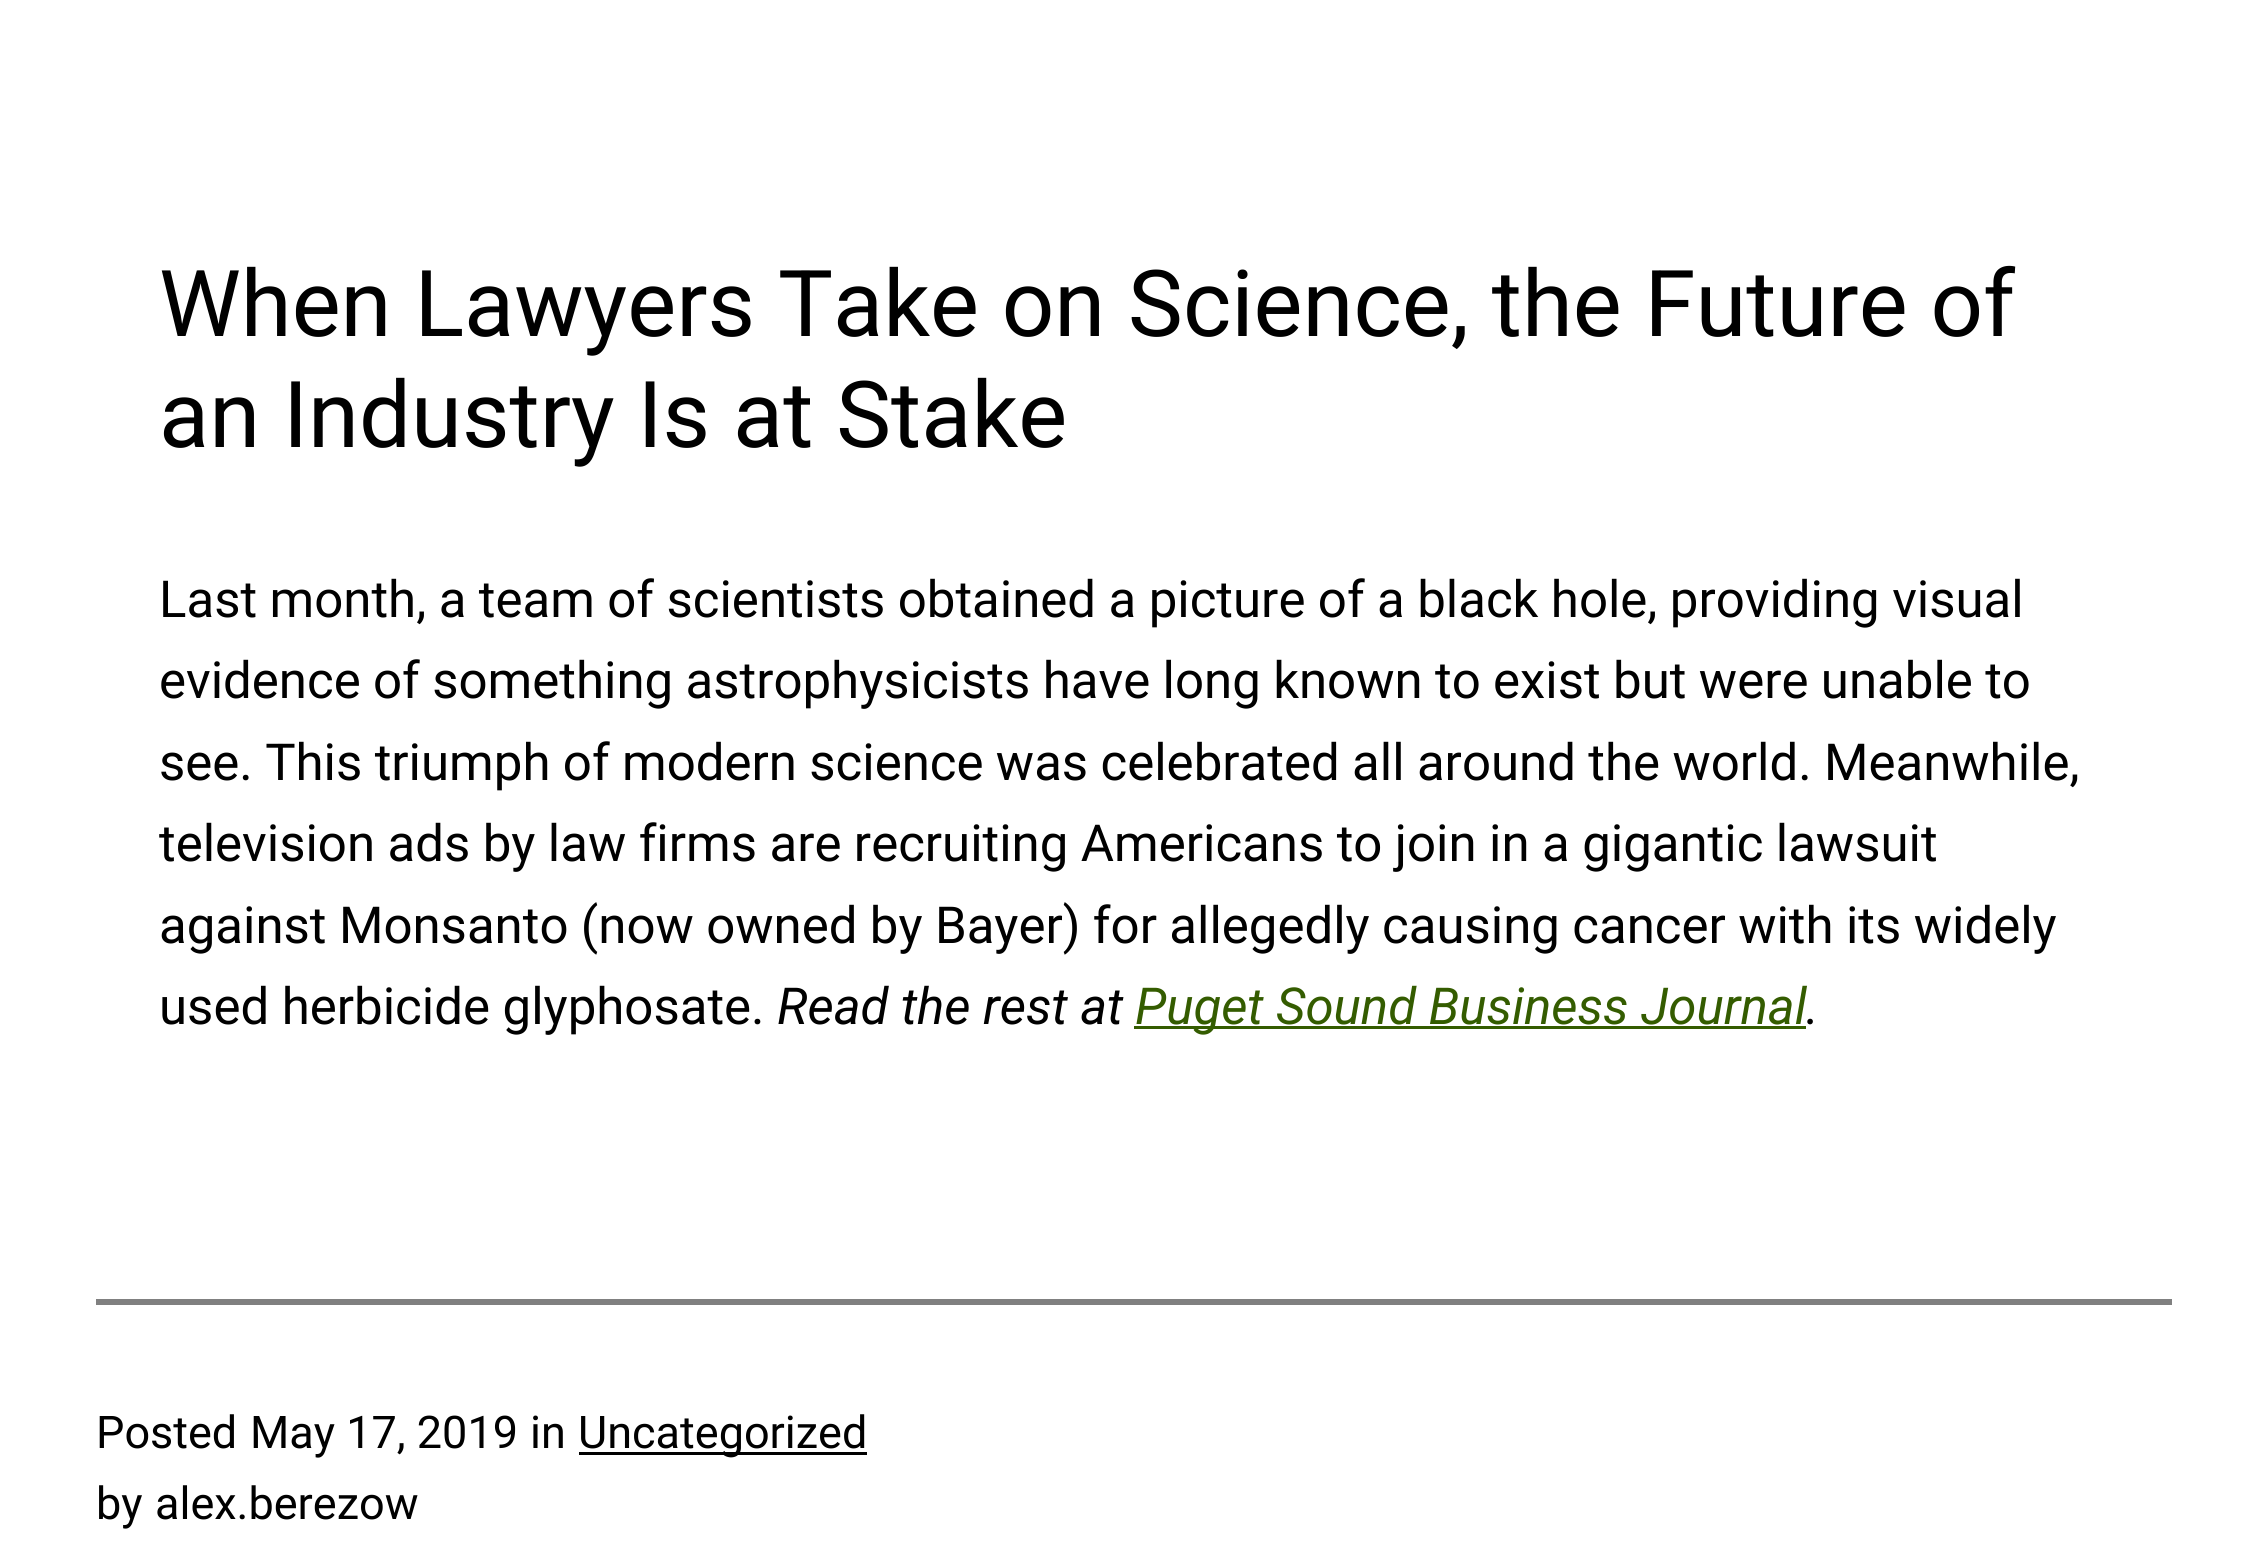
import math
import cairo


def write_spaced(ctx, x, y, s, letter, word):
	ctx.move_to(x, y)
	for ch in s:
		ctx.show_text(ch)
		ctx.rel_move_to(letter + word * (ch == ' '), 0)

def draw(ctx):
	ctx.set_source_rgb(1, 1, 1)
	ctx.paint()
	ctx.select_font_face('Roboto')
	ctx.set_font_size(92.25)
	ctx.set_source_rgb(0, 0, 0)
	ctx.move_to(159, 336)
	ctx.show_text('When Lawyers Take on Science, the Future of')
	ctx.move_to(159, 447)
	ctx.show_text('an Industry Is at Stake')
	ctx.set_font_size(50.95)
	write_spaced(ctx, 159, 617, 'Last month, a team of scientists obtained a picture of a black hole, providing visual', 0, -0.2)
	write_spaced(ctx, 159, 698, 'evidence of something astrophysicists have long known to exist but were unable to', 0, -0.25)
	write_spaced(ctx, 159, 780, 'see. This triumph of modern science was celebrated all around the world. Meanwhile,', 0, -0.25)
	write_spaced(ctx, 159, 861, 'television ads by law firms are recruiting Americans to join in a gigantic lawsuit', 0, -0.2)
	write_spaced(ctx, 159, 943, 'against Monsanto (now owned by Bayer) for allegedly causing cancer with its widely', 0, -0.25)
	ctx.move_to(159, 1024)
	ctx.show_text('used herbicide glyphosate.')
	ctx.select_font_face('Roboto', cairo.FONT_SLANT_ITALIC)
	ctx.move_to(777, 1024)
	ctx.show_text('Read the rest at')
	ctx.set_source_rgb(0.204, 0.361, 0)
	ctx.rectangle(1134, 1026, 672, 3)
	ctx.fill()
	ctx.move_to(1135, 1024)
	ctx.show_text('Puget Sound Business Journal')
	ctx.set_source_rgb(0, 0, 0)
	ctx.move_to(1806, 1024)
	ctx.show_text('.')
	ctx.set_source_rgb(0.502, 0.502, 0.502)
	ctx.rectangle(96, 1299, 2076, 6)
	ctx.fill()
	ctx.select_font_face('Roboto')
	ctx.set_font_size(45)
	ctx.set_source_rgb(0, 0, 0)
	for x, y, s in [
		(96, 1448, 'Posted'),
		(250, 1448, 'May 17, 2019'),
		(530, 1448, 'in'),
	]:
		ctx.move_to(x, y)
		ctx.show_text(s)
	ctx.rectangle(579, 1452, 288, 3)
	ctx.fill()
	for x, y, s in [
		(578, 1448, 'Uncategorized'),
		(96, 1519, 'by'),
		(155, 1519, 'alex.berezow'),
	]:
		ctx.move_to(x, y)
		ctx.show_text(s)


surface = cairo.ImageSurface(cairo.FORMAT_RGB24, 2266, 1565)
ctx = cairo.Context(surface)
options = cairo.FontOptions()
options.set_hint_metrics(cairo.HINT_METRICS_OFF)
options.set_hint_style(cairo.HINT_STYLE_NONE)
ctx.set_font_options(options)
ctx.set_miter_limit(4)
draw(ctx)
surface.write_to_png('image.png')
